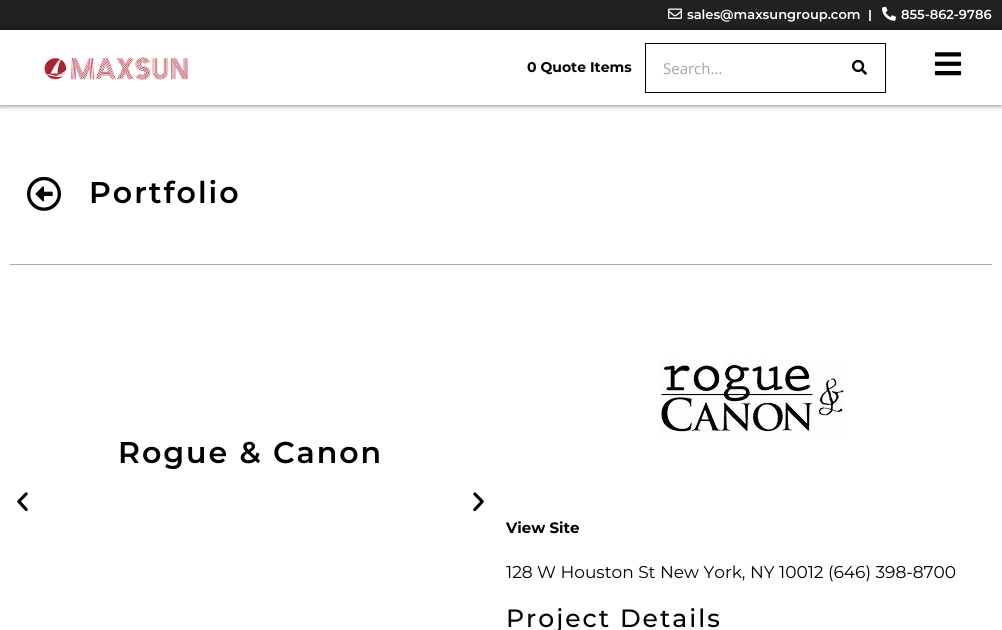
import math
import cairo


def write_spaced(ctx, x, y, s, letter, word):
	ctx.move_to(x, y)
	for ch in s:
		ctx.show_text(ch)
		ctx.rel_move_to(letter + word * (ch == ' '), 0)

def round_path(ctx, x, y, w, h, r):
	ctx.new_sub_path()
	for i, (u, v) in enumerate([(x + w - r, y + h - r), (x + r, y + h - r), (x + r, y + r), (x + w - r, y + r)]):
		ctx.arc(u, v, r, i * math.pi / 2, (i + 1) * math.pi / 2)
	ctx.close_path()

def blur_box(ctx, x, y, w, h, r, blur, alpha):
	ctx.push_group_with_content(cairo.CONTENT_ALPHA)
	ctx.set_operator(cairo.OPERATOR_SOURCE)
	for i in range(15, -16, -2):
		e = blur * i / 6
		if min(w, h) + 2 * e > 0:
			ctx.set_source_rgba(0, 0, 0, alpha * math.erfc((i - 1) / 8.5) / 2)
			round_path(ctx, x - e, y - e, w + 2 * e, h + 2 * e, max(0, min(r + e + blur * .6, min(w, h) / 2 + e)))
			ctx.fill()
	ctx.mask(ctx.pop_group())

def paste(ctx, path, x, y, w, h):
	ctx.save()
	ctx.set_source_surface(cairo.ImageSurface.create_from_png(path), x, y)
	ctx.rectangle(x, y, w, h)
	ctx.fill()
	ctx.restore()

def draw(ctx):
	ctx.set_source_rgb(1, 1, 1)
	ctx.paint()
	ctx.set_source_rgb(0.129, 0.129, 0.129)
	ctx.rectangle(0, 0, 1002, 30)
	ctx.fill()
	paste(ctx, 'media/1.png', 668, 8, 14, 11)
	ctx.select_font_face('Montserrat SemiBold')
	ctx.set_font_size(13)
	ctx.set_source_rgb(1, 1, 1)
	ctx.move_to(687, 19)
	ctx.show_text('sales@maxsungroup.com')
	ctx.set_source_rgb(0.867, 0.867, 0.867)
	ctx.rectangle(869, 10, 2, 11)
	ctx.fill()
	paste(ctx, 'media/2.png', 882, 6, 14, 15)
	ctx.set_source_rgb(1, 1, 1)
	ctx.move_to(901, 19)
	ctx.show_text('855-862-9786')
	ctx.save()
	ctx.set_fill_rule(cairo.FILL_RULE_EVEN_ODD)
	ctx.new_path()
	ctx.move_to(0, 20)
	ctx.line_to(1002, 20)
	ctx.line_to(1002, 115)
	ctx.line_to(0, 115)
	ctx.close_path()
	ctx.move_to(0, 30)
	ctx.line_to(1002, 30)
	ctx.line_to(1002, 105)
	ctx.line_to(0, 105)
	ctx.close_path()
	ctx.clip()
	ctx.set_source_rgb(0, 0, 0)
	blur_box(ctx, 0, 30, 1002, 75, 0, 3, 0.61)
	ctx.restore()
	paste(ctx, 'media/3.png', 44, 57, 144, 23)
	ctx.select_font_face('Montserrat', cairo.FONT_SLANT_NORMAL, cairo.FONT_WEIGHT_BOLD)
	ctx.set_font_size(14)
	ctx.set_source_rgb(0, 0, 0)
	ctx.move_to(527, 72)
	ctx.show_text('0 Quote Items')
	ctx.rectangle(645.5, 43.5, 240, 49)
	ctx.set_line_width(1)
	ctx.stroke()
	ctx.select_font_face('Open Sans')
	ctx.set_font_size(15)
	ctx.set_source_rgb(0.639, 0.639, 0.639)
	ctx.move_to(663, 74)
	ctx.show_text('Search...')
	paste(ctx, 'media/4.png', 852, 59, 15, 16)
	paste(ctx, 'media/5.png', 934, 52, 28, 24)
	paste(ctx, 'media/6.png', 27, 176, 34, 35)
	ctx.select_font_face('Montserrat SemiBold')
	ctx.set_font_size(30)
	ctx.set_source_rgb(0, 0, 0)
	write_spaced(ctx, 89, 203, 'Portfolio', 2, 0)
	ctx.set_source_rgb(0.678, 0.678, 0.678)
	ctx.rectangle(10, 264, 982, 1)
	ctx.fill()
	ctx.set_source_rgb(0, 0, 0)
	write_spaced(ctx, 118, 463, 'Rogue & Canon', 2, 0)
	paste(ctx, 'media/7.png', 17, 492, 11, 20)
	paste(ctx, 'media/8.png', 473, 492, 11, 20)
	paste(ctx, 'media/9.png', 660, 359, 184, 78)
	ctx.select_font_face('Montserrat', cairo.FONT_SLANT_NORMAL, cairo.FONT_WEIGHT_BOLD)
	ctx.set_font_size(15)
	ctx.move_to(506, 533)
	ctx.show_text('View Site')
	ctx.select_font_face('Montserrat')
	ctx.set_font_size(17)
	ctx.move_to(506, 578)
	ctx.show_text('128 W Houston St New York, NY 10012 (646) 398-8700')
	ctx.select_font_face('Montserrat Medium')
	ctx.set_font_size(25)
	write_spaced(ctx, 506, 627, 'Project Details', 2, 0)


surface = cairo.ImageSurface(cairo.FORMAT_RGB24, 1002, 630)
ctx = cairo.Context(surface)
options = cairo.FontOptions()
options.set_hint_metrics(cairo.HINT_METRICS_OFF)
options.set_hint_style(cairo.HINT_STYLE_NONE)
ctx.set_font_options(options)
ctx.set_miter_limit(4)
draw(ctx)
surface.write_to_png('image.png')
